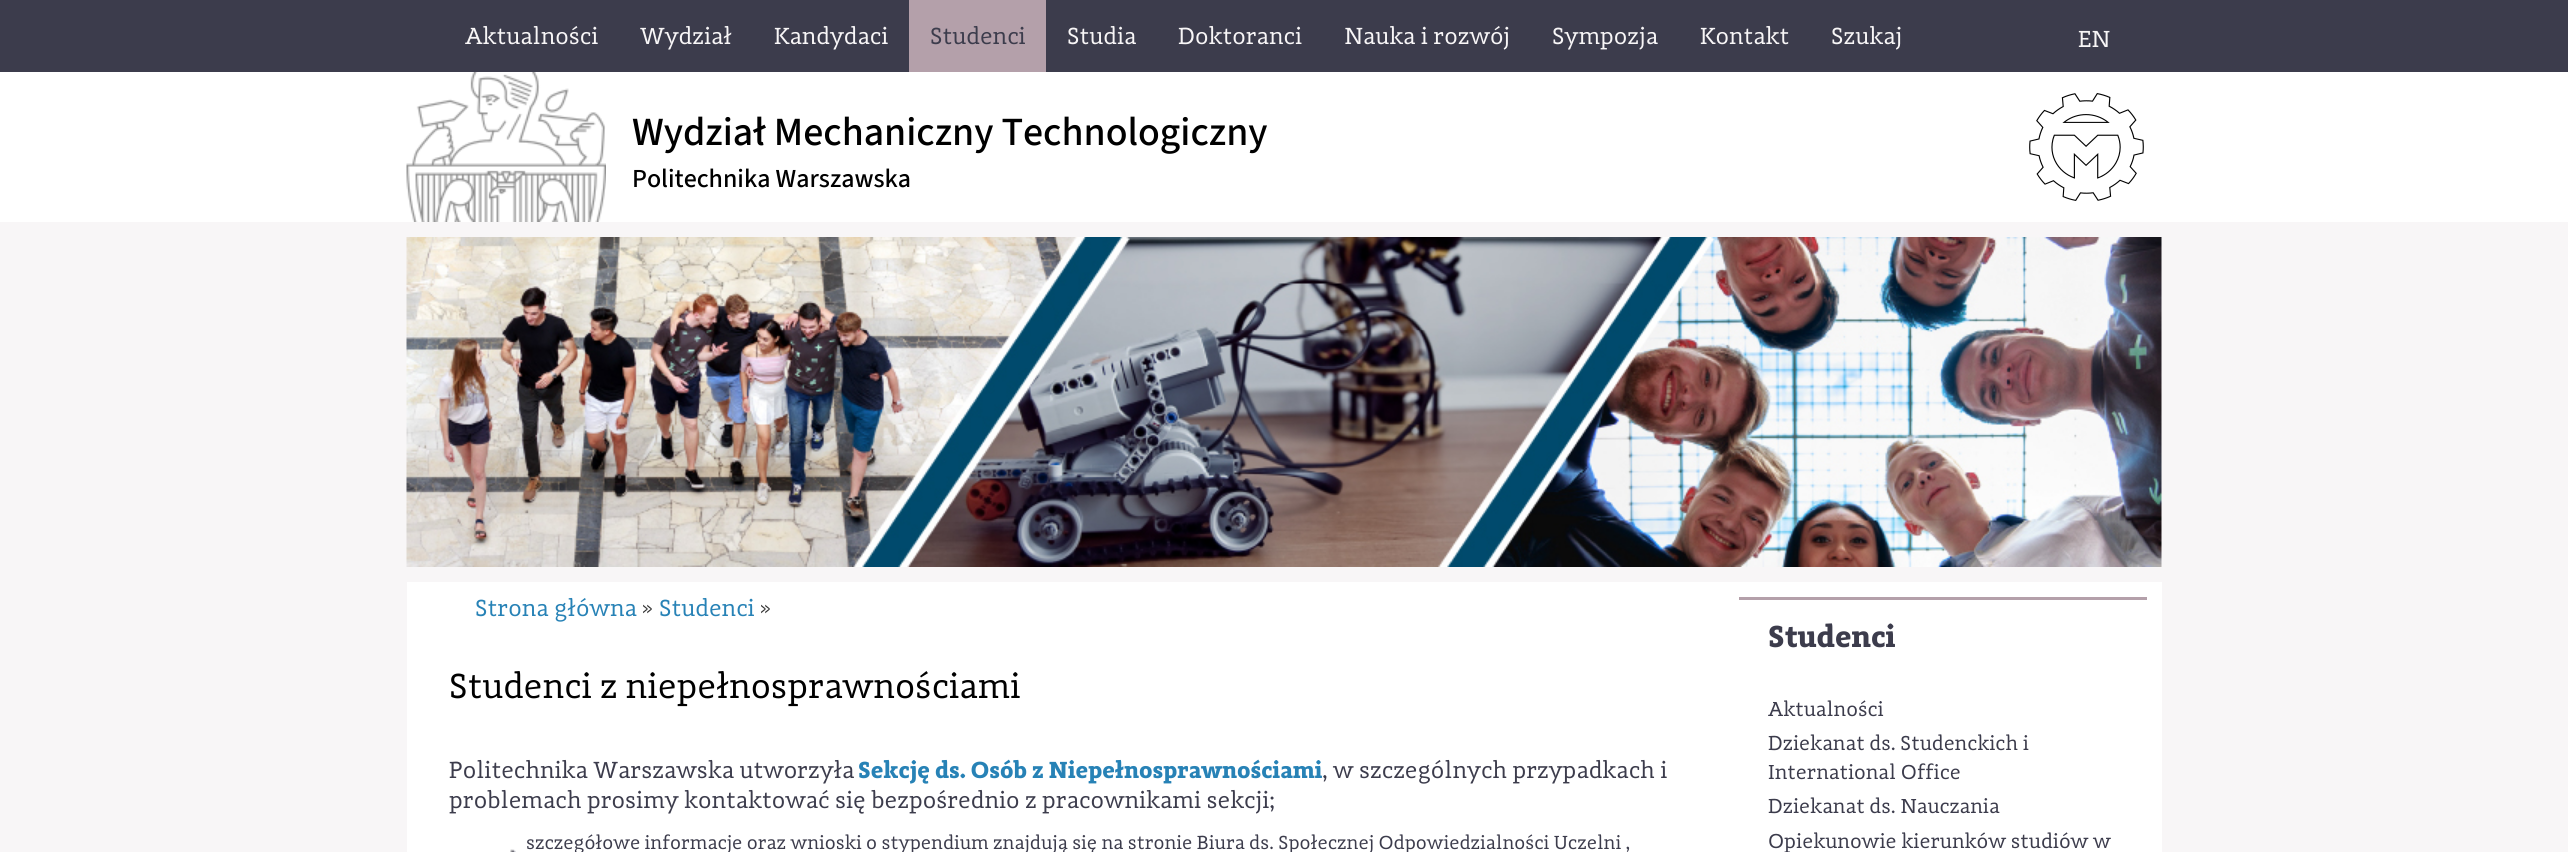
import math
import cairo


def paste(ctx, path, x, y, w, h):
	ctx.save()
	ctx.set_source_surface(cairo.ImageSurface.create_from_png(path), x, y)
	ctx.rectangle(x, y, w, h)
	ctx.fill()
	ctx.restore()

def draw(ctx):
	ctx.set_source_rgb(0.969, 0.961, 0.965)
	ctx.paint()
	ctx.set_source_rgb(0.235, 0.235, 0.298)
	ctx.rectangle(0, 0, 2568, 72)
	ctx.fill()
	ctx.select_font_face('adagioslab')
	ctx.set_font_size(24.1)
	ctx.set_source_rgb(0.969, 0.961, 0.965)
	for x, y, s in [
		(465, 44, 'Aktualności'),
		(640, 44, 'Wydział'),
		(774, 44, 'Kandydaci'),
	]:
		ctx.move_to(x, y)
		ctx.show_text(s)
	ctx.set_source_rgb(0.706, 0.627, 0.667)
	ctx.rectangle(909, 0, 137, 72)
	ctx.fill()
	ctx.set_source_rgb(0.235, 0.235, 0.298)
	ctx.move_to(930, 44)
	ctx.show_text('Studenci')
	ctx.set_source_rgb(0.969, 0.961, 0.965)
	for x, y, s in [
		(1067, 44, 'Studia'),
		(1178, 44, 'Doktoranci'),
		(1344, 44, 'Nauka i rozwój'),
		(1552, 44, 'Sympozja'),
		(1700, 44, 'Kontakt'),
		(1831, 44, 'Szukaj'),
	]:
		ctx.move_to(x, y)
		ctx.show_text(s)
	ctx.set_font_size(24)
	ctx.move_to(2078, 47)
	ctx.show_text('EN')
	ctx.set_source_rgb(1, 1, 1)
	ctx.rectangle(0, 72, 2568, 150)
	ctx.fill()
	paste(ctx, 'media/1.png', 406, 72, 200, 150)
	ctx.select_font_face('Source Sans 3 Medium')
	ctx.set_font_size(40)
	ctx.set_source_rgb(0, 0, 0)
	ctx.move_to(632, 145)
	ctx.show_text('Wydział Mechaniczny Technologiczny')
	ctx.set_font_size(26)
	ctx.move_to(632, 187)
	ctx.show_text('Politechnika Warszawska')
	paste(ctx, 'media/2.png', 2029, 93, 115, 108)
	paste(ctx, 'media/3.png', 406, 237, 1756, 330)
	ctx.set_source_rgb(1, 1, 1)
	ctx.rectangle(407, 582, 1755, 270)
	ctx.fill()
	ctx.select_font_face('adagioslab')
	ctx.set_font_size(24.1)
	ctx.set_source_rgb(0.153, 0.51, 0.714)
	ctx.move_to(475, 616)
	ctx.show_text('Strona główna')
	ctx.set_font_size(19)
	ctx.set_source_rgb(0.2, 0.2, 0.2)
	ctx.move_to(642, 614)
	ctx.show_text('»')
	ctx.set_font_size(24.1)
	ctx.set_source_rgb(0.153, 0.51, 0.714)
	ctx.move_to(659, 616)
	ctx.show_text('Studenci')
	ctx.set_font_size(19)
	ctx.set_source_rgb(0.2, 0.2, 0.2)
	ctx.move_to(760, 614)
	ctx.show_text('»')
	ctx.set_font_size(36)
	ctx.set_source_rgb(0, 0, 0)
	ctx.move_to(449, 698)
	ctx.show_text('Studenci z niepełnosprawnościami')
	ctx.set_font_size(24.1)
	ctx.set_source_rgb(0.235, 0.235, 0.298)
	ctx.move_to(449, 778)
	ctx.show_text('Politechnika Warszawska utworzyła')
	ctx.select_font_face('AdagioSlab', cairo.FONT_SLANT_NORMAL, cairo.FONT_WEIGHT_BOLD)
	ctx.set_source_rgb(0.153, 0.51, 0.714)
	ctx.move_to(858, 778)
	ctx.show_text('Sekcję ds. Osób z Niepełnosprawnościami')
	ctx.select_font_face('adagioslab')
	ctx.set_source_rgb(0.235, 0.235, 0.298)
	ctx.move_to(1322, 778)
	ctx.show_text(', w szczególnych przypadkach i')
	ctx.move_to(449, 808)
	ctx.show_text('problemach prosimy kontaktować się bezpośrednio z pracownikami sekcji;')
	paste(ctx, 'media/4.png', 510, 849, 6, 3)
	ctx.set_font_size(19.58)
	ctx.move_to(526, 849)
	ctx.show_text('szczegółowe informacje oraz wnioski o stypendium znajdują się na stronie Biura ds. Społecznej Odpowiedzialności Uczelni ,')
	ctx.set_source_rgb(0.706, 0.627, 0.667)
	ctx.rectangle(1739, 597, 408, 3)
	ctx.fill()
	ctx.select_font_face('AdagioSlab', cairo.FONT_SLANT_NORMAL, cairo.FONT_WEIGHT_BOLD)
	ctx.set_font_size(31.5)
	ctx.set_source_rgb(0.235, 0.235, 0.298)
	ctx.move_to(1768, 647)
	ctx.show_text('Studenci')
	ctx.select_font_face('adagioslab')
	ctx.set_font_size(20.9)
	for x, y, s in [
		(1768, 716, 'Aktualności'),
		(1768, 750, 'Dziekanat ds. Studenckich i'),
		(1768, 779, 'International Office'),
		(1768, 813, 'Dziekanat ds. Nauczania'),
		(1768, 848, 'Opiekunowie kierunków studiów w'),
	]:
		ctx.move_to(x, y)
		ctx.show_text(s)


surface = cairo.ImageSurface(cairo.FORMAT_RGB24, 2568, 852)
ctx = cairo.Context(surface)
options = cairo.FontOptions()
options.set_hint_metrics(cairo.HINT_METRICS_OFF)
options.set_hint_style(cairo.HINT_STYLE_NONE)
ctx.set_font_options(options)
ctx.set_miter_limit(4)
draw(ctx)
surface.write_to_png('image.png')
